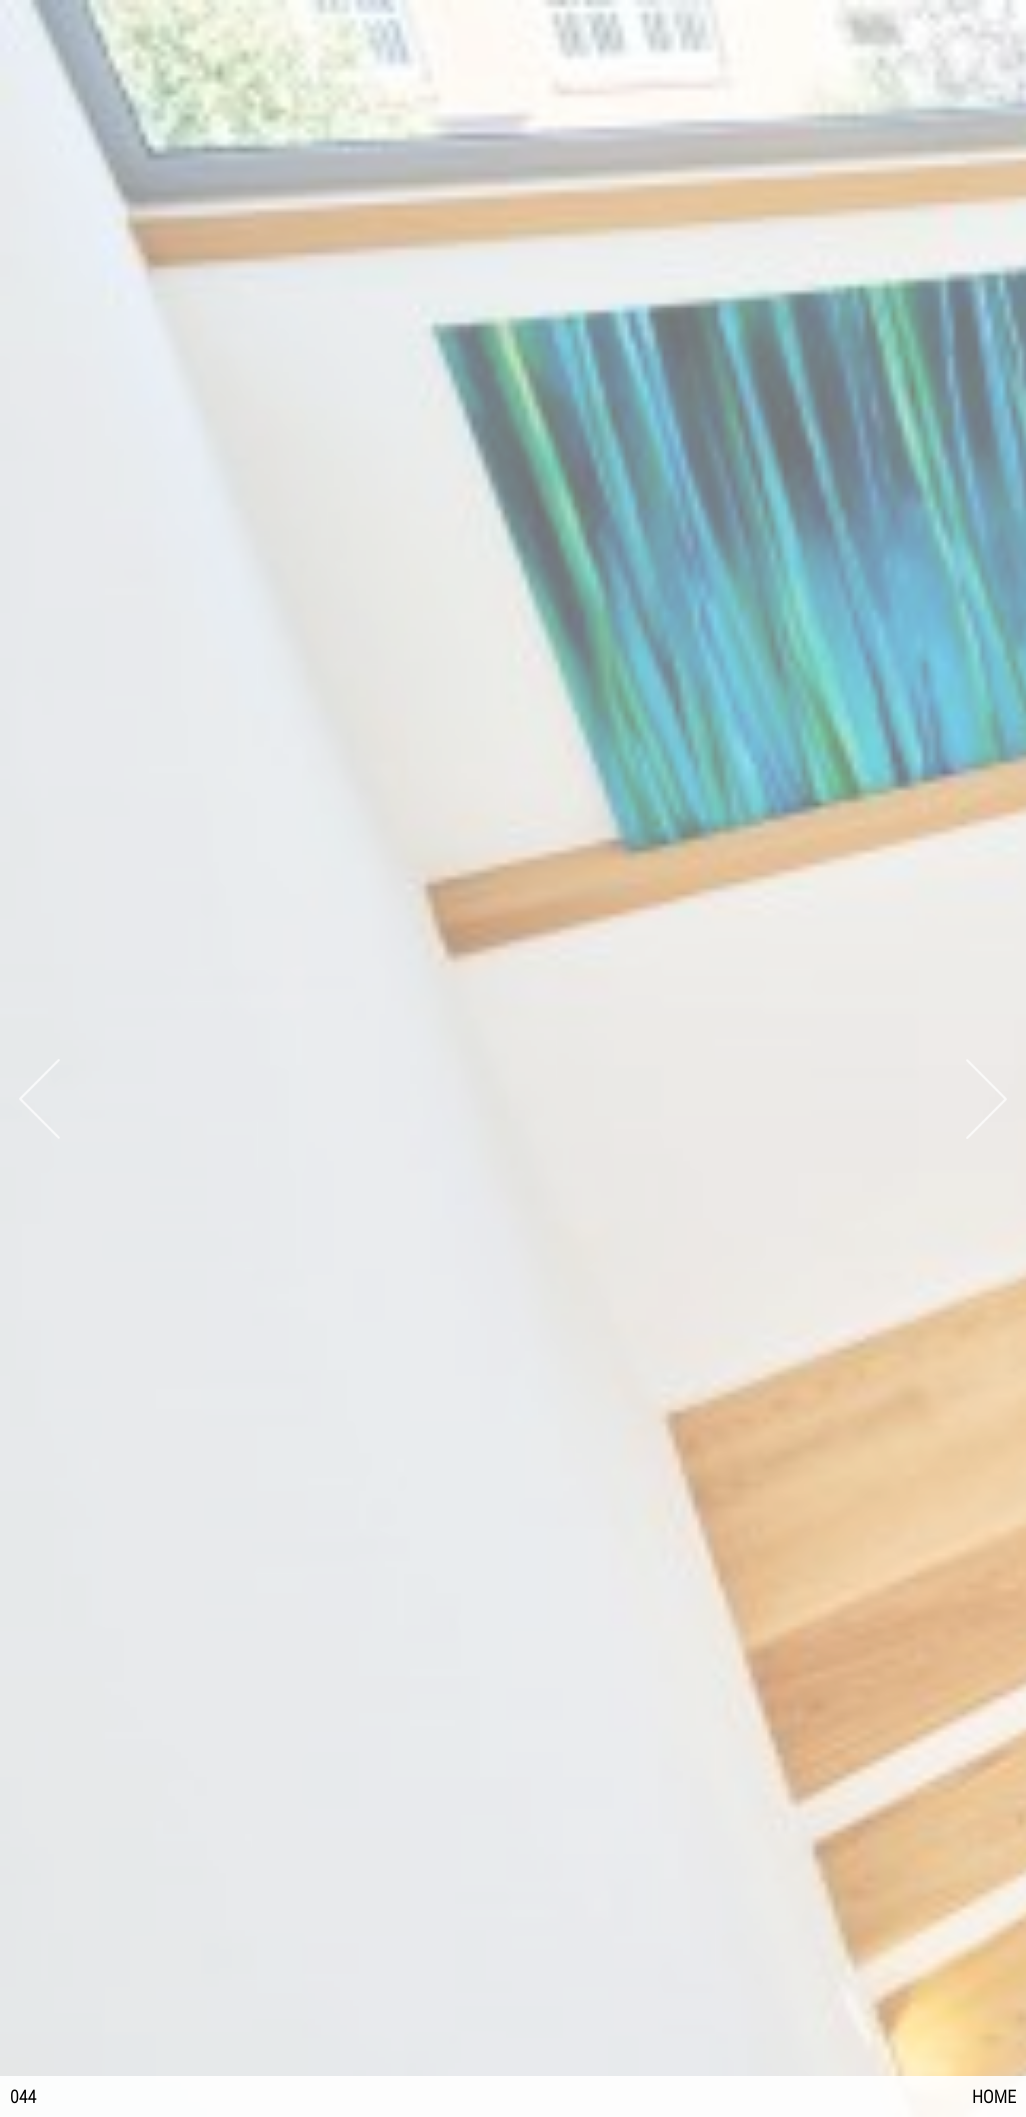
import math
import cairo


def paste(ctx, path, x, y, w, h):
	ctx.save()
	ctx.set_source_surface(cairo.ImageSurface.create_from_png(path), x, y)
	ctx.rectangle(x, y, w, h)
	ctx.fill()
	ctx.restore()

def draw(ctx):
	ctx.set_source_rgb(1, 1, 1)
	ctx.paint()
	paste(ctx, 'media/1.png', 0, 0, 1026, 2117)
	paste(ctx, 'media/2.png', 19, 1059, 41, 80)
	paste(ctx, 'media/3.png', 966, 1059, 41, 80)
	ctx.set_source_rgba(1, 1, 1, 0.9)
	ctx.rectangle(0, 2076, 1026, 41)
	ctx.fill()
	ctx.select_font_face('Roboto Condensed', cairo.FONT_SLANT_NORMAL, cairo.FONT_WEIGHT_BOLD)
	ctx.set_font_size(18)
	ctx.set_source_rgb(0, 0, 0)
	ctx.move_to(10, 2103)
	ctx.show_text('044')
	ctx.move_to(972, 2103)
	ctx.show_text('HOME')


surface = cairo.ImageSurface(cairo.FORMAT_RGB24, 1026, 2117)
ctx = cairo.Context(surface)
options = cairo.FontOptions()
options.set_hint_metrics(cairo.HINT_METRICS_OFF)
options.set_hint_style(cairo.HINT_STYLE_NONE)
ctx.set_font_options(options)
ctx.set_miter_limit(4)
draw(ctx)
surface.write_to_png('image.png')
